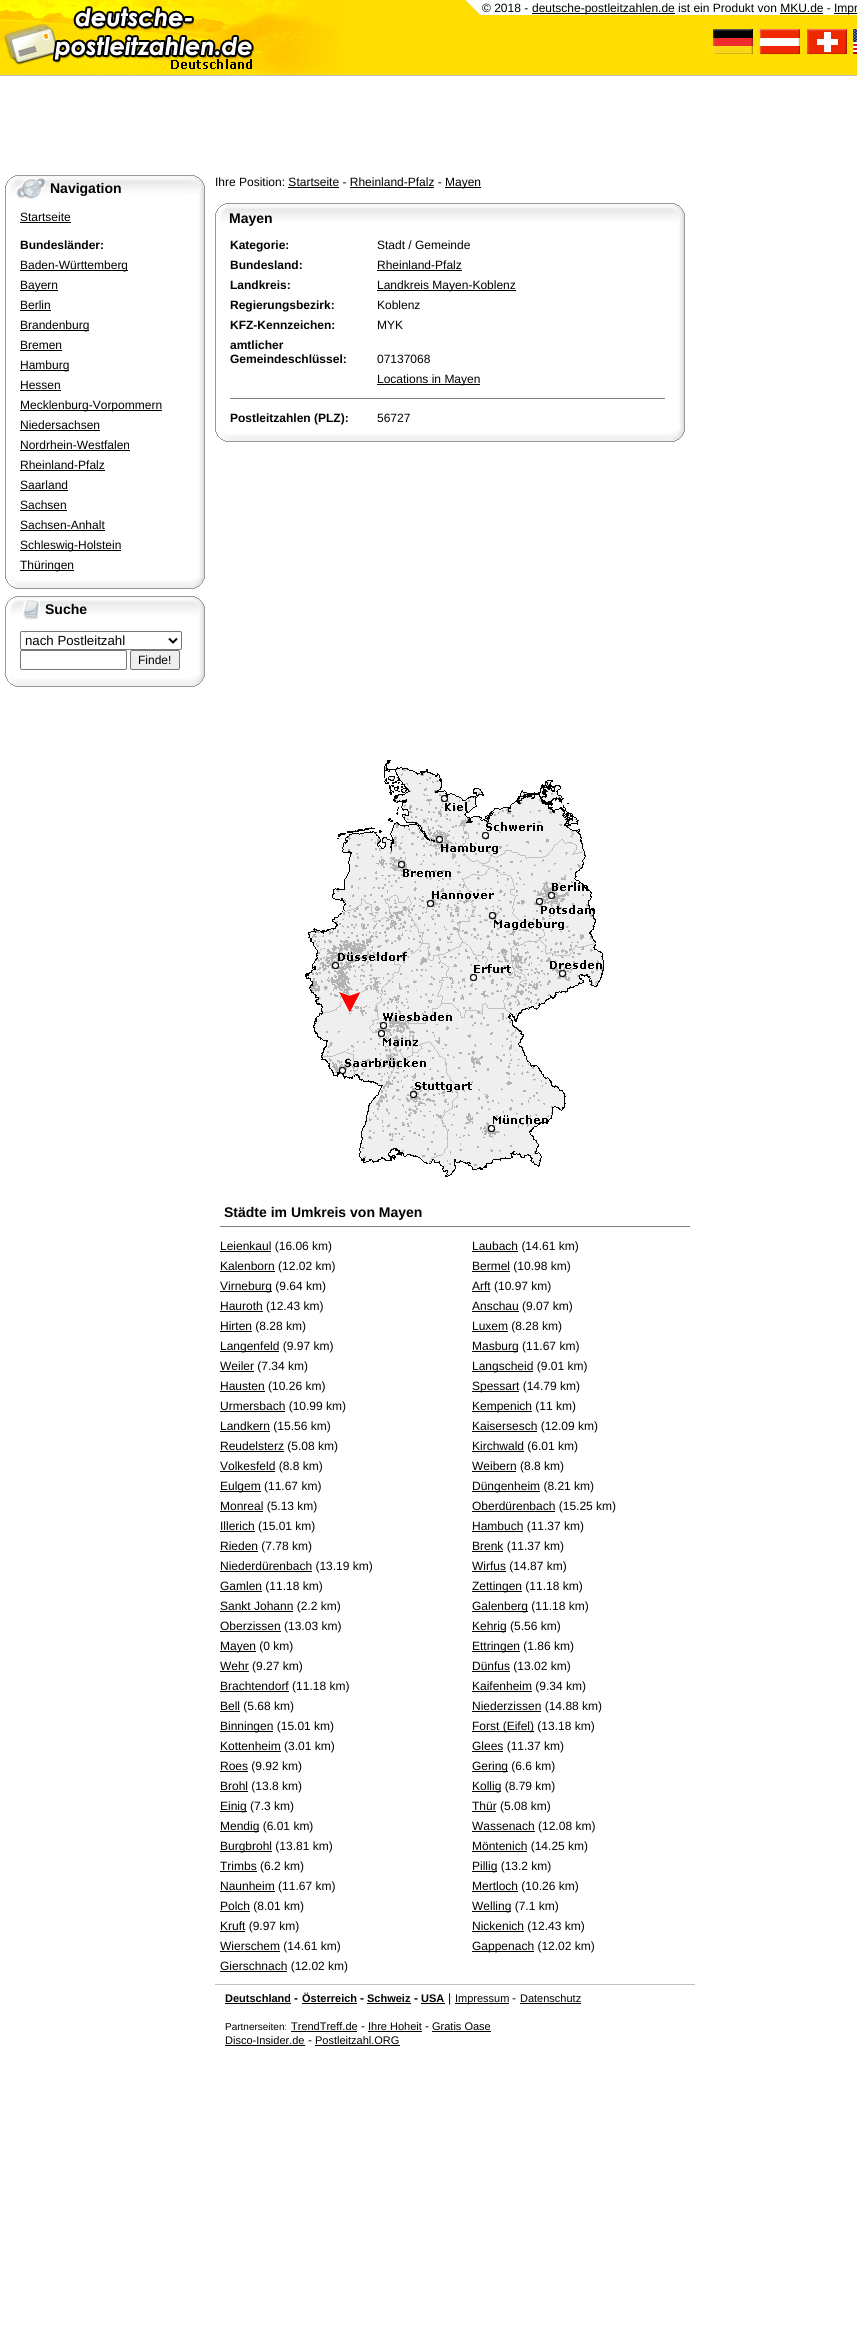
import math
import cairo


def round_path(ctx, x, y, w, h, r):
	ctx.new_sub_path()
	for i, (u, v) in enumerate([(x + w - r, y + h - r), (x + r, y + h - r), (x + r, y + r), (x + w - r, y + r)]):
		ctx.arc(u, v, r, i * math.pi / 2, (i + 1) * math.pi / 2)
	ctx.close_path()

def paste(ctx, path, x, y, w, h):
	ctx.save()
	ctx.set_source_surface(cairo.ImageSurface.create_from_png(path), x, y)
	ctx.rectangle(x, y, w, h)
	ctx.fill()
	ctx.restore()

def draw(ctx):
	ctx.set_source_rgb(1, 1, 1)
	ctx.paint()
	ctx.set_source_rgb(1, 0.867, 0)
	ctx.rectangle(341, 0, 516, 75)
	ctx.fill()
	paste(ctx, 'media/1.png', 0, 0, 341, 75)
	ctx.set_source_rgb(1, 1, 1)
	ctx.rectangle(480, 0, 377, 15)
	ctx.fill()
	paste(ctx, 'media/2.png', 460, 0, 20, 15)
	ctx.select_font_face('Liberation Sans')
	ctx.set_font_size(12)
	ctx.set_source_rgb(0, 0, 0)
	ctx.move_to(482, 12)
	ctx.show_text('© 2018 -')
	ctx.rectangle(532, 13, 143, 1)
	ctx.fill()
	ctx.move_to(532, 12)
	ctx.show_text('deutsche-postleitzahlen.de ist ein Produkt von MKU.de -')
	ctx.rectangle(834, 13, 23, 1)
	ctx.fill()
	ctx.move_to(834, 12)
	ctx.show_text('Impr')
	ctx.rectangle(780, 13, 43, 1)
	ctx.fill()
	paste(ctx, 'media/3.png', 713, 29, 40, 25)
	paste(ctx, 'media/4.png', 760, 29, 40, 25)
	paste(ctx, 'media/5.png', 807, 29, 40, 25)
	paste(ctx, 'media/6.png', 853, 29, 4, 25)
	ctx.set_source_rgb(0.753, 0.753, 0.753)
	ctx.rectangle(0, 75, 857, 1)
	ctx.fill()
	paste(ctx, 'media/7.png', 5, 176, 10, 24)
	paste(ctx, 'media/8.png', 15, 175, 175, 18)
	paste(ctx, 'media/9.png', 16, 178, 29, 21)
	ctx.select_font_face('Liberation Sans', cairo.FONT_SLANT_NORMAL, cairo.FONT_WEIGHT_BOLD)
	ctx.set_font_size(14)
	ctx.set_source_rgb(0, 0, 0)
	ctx.move_to(50, 193)
	ctx.show_text('Navigation')
	paste(ctx, 'media/10.png', 190, 175, 15, 25)
	ctx.set_source_rgb(0.6, 0.6, 0.6)
	ctx.rectangle(5, 200, 1, 377)
	ctx.fill()
	ctx.select_font_face('Liberation Sans')
	ctx.set_font_size(12)
	ctx.set_source_rgb(0, 0, 0)
	ctx.move_to(20, 221)
	ctx.show_text('Startseite')
	ctx.rectangle(20, 222, 51, 1)
	ctx.fill()
	ctx.select_font_face('Liberation Sans', cairo.FONT_SLANT_NORMAL, cairo.FONT_WEIGHT_BOLD)
	ctx.move_to(20, 249)
	ctx.show_text('Bundesländer:')
	ctx.rectangle(20, 270, 108, 1)
	ctx.fill()
	ctx.select_font_face('Liberation Sans')
	ctx.move_to(20, 269)
	ctx.show_text('Baden-Württemberg')
	ctx.rectangle(20, 290, 38, 1)
	ctx.fill()
	ctx.move_to(20, 289)
	ctx.show_text('Bayern')
	ctx.move_to(20, 309)
	ctx.show_text('Berlin')
	ctx.rectangle(20, 310, 31, 1)
	ctx.fill()
	ctx.rectangle(20, 330, 69, 1)
	ctx.fill()
	ctx.move_to(20, 329)
	ctx.show_text('Brandenburg')
	ctx.move_to(20, 349)
	ctx.show_text('Bremen')
	ctx.rectangle(20, 350, 42, 1)
	ctx.fill()
	ctx.rectangle(20, 370, 49, 1)
	ctx.fill()
	ctx.move_to(20, 369)
	ctx.show_text('Hamburg')
	ctx.move_to(20, 389)
	ctx.show_text('Hessen')
	ctx.rectangle(20, 390, 41, 1)
	ctx.fill()
	ctx.rectangle(20, 410, 142, 1)
	ctx.fill()
	ctx.move_to(20, 409)
	ctx.show_text('Mecklenburg-Vorpommern')
	ctx.move_to(20, 429)
	ctx.show_text('Niedersachsen')
	ctx.rectangle(20, 430, 80, 1)
	ctx.fill()
	ctx.move_to(20, 449)
	ctx.show_text('Nordrhein-Westfalen')
	ctx.rectangle(20, 450, 110, 1)
	ctx.fill()
	ctx.move_to(20, 469)
	ctx.show_text('Rheinland-Pfalz')
	ctx.rectangle(20, 470, 85, 1)
	ctx.fill()
	ctx.move_to(20, 489)
	ctx.show_text('Saarland')
	ctx.rectangle(20, 490, 48, 1)
	ctx.fill()
	ctx.move_to(20, 509)
	ctx.show_text('Sachsen')
	ctx.rectangle(20, 510, 47, 1)
	ctx.fill()
	ctx.move_to(20, 529)
	ctx.show_text('Sachsen-Anhalt')
	ctx.rectangle(20, 530, 85, 1)
	ctx.fill()
	ctx.rectangle(20, 550, 101, 1)
	ctx.fill()
	ctx.move_to(20, 549)
	ctx.show_text('Schleswig-Holstein')
	ctx.rectangle(20, 570, 54, 1)
	ctx.fill()
	ctx.move_to(20, 569)
	ctx.show_text('Thüringen')
	paste(ctx, 'media/11.png', 199, 200, 6, 377)
	paste(ctx, 'media/12.png', 5, 577, 10, 11)
	paste(ctx, 'media/13.png', 15, 581, 175, 8)
	paste(ctx, 'media/14.png', 190, 577, 15, 12)
	paste(ctx, 'media/7.png', 5, 597, 10, 24)
	paste(ctx, 'media/8.png', 15, 596, 175, 18)
	paste(ctx, 'media/15.png', 22, 599, 18, 21)
	ctx.select_font_face('Liberation Sans', cairo.FONT_SLANT_NORMAL, cairo.FONT_WEIGHT_BOLD)
	ctx.set_font_size(14)
	ctx.move_to(45, 614)
	ctx.show_text('Suche')
	paste(ctx, 'media/10.png', 190, 596, 15, 25)
	ctx.set_source_rgb(0.6, 0.6, 0.6)
	ctx.rectangle(5, 621, 1, 54)
	ctx.fill()
	round_path(ctx, 20.5, 631.5, 161, 18, 1.5)
	ctx.set_source_rgb(0.463, 0.463, 0.463)
	ctx.set_line_width(1)
	ctx.stroke()
	ctx.new_path()
	ctx.move_to(169, 638.5)
	ctx.line_to(173, 642.5)
	ctx.line_to(177, 638.5)
	ctx.set_source_rgb(0, 0, 0)
	ctx.set_line_width(2)
	ctx.stroke()
	ctx.select_font_face('Liberation Sans')
	ctx.set_font_size(13.25)
	ctx.move_to(25, 645)
	ctx.show_text('nach Postleitzahl')
	round_path(ctx, 20.5, 650.5, 106, 19, 1.5)
	ctx.set_source_rgb(0.463, 0.463, 0.463)
	ctx.set_line_width(1)
	ctx.stroke()
	ctx.set_source_rgb(0.937, 0.937, 0.937)
	round_path(ctx, 130.5, 650.5, 49, 19, 1.5)
	ctx.fill_preserve()
	ctx.set_source_rgb(0.463, 0.463, 0.463)
	ctx.stroke()
	ctx.set_font_size(12)
	ctx.set_source_rgb(0, 0, 0)
	ctx.move_to(138, 664)
	ctx.show_text('Finde!')
	paste(ctx, 'media/16.png', 199, 621, 6, 54)
	paste(ctx, 'media/12.png', 5, 675, 10, 11)
	paste(ctx, 'media/13.png', 15, 679, 175, 8)
	paste(ctx, 'media/14.png', 190, 675, 15, 12)
	ctx.move_to(215, 186)
	ctx.show_text('Ihre Position: Startseite - Rheinland-Pfalz -')
	ctx.rectangle(445, 187, 36, 1)
	ctx.fill()
	ctx.move_to(445, 186)
	ctx.show_text('Mayen')
	ctx.rectangle(288, 187, 51, 1)
	ctx.fill()
	ctx.rectangle(350, 187, 84, 1)
	ctx.fill()
	paste(ctx, 'media/7.png', 215, 204, 10, 24)
	paste(ctx, 'media/17.png', 225, 203, 445, 18)
	ctx.select_font_face('Liberation Sans', cairo.FONT_SLANT_NORMAL, cairo.FONT_WEIGHT_BOLD)
	ctx.set_font_size(14)
	ctx.move_to(229, 223)
	ctx.show_text('Mayen')
	paste(ctx, 'media/10.png', 670, 203, 15, 25)
	ctx.set_source_rgb(0.6, 0.6, 0.6)
	ctx.rectangle(215, 228, 1, 202)
	ctx.fill()
	ctx.set_font_size(12)
	ctx.set_source_rgb(0, 0, 0)
	ctx.move_to(230, 249)
	ctx.show_text('Kategorie:')
	ctx.select_font_face('Liberation Sans')
	ctx.move_to(377, 249)
	ctx.show_text('Stadt / Gemeinde')
	ctx.select_font_face('Liberation Sans', cairo.FONT_SLANT_NORMAL, cairo.FONT_WEIGHT_BOLD)
	ctx.move_to(230, 269)
	ctx.show_text('Bundesland:')
	ctx.select_font_face('Liberation Sans')
	ctx.move_to(377, 269)
	ctx.show_text('Rheinland-Pfalz')
	ctx.rectangle(377, 270, 85, 1)
	ctx.fill()
	ctx.select_font_face('Liberation Sans', cairo.FONT_SLANT_NORMAL, cairo.FONT_WEIGHT_BOLD)
	ctx.move_to(230, 289)
	ctx.show_text('Landkreis:')
	ctx.rectangle(377, 290, 139, 1)
	ctx.fill()
	ctx.select_font_face('Liberation Sans')
	ctx.move_to(377, 289)
	ctx.show_text('Landkreis Mayen-Koblenz')
	ctx.select_font_face('Liberation Sans', cairo.FONT_SLANT_NORMAL, cairo.FONT_WEIGHT_BOLD)
	ctx.move_to(230, 309)
	ctx.show_text('Regierungsbezirk:')
	ctx.select_font_face('Liberation Sans')
	ctx.move_to(377, 309)
	ctx.show_text('Koblenz')
	ctx.select_font_face('Liberation Sans', cairo.FONT_SLANT_NORMAL, cairo.FONT_WEIGHT_BOLD)
	ctx.move_to(230, 329)
	ctx.show_text('KFZ-Kennzeichen:')
	ctx.select_font_face('Liberation Sans')
	ctx.move_to(377, 329)
	ctx.show_text('MYK')
	ctx.select_font_face('Liberation Sans', cairo.FONT_SLANT_NORMAL, cairo.FONT_WEIGHT_BOLD)
	ctx.move_to(230, 349)
	ctx.show_text('amtlicher')
	ctx.move_to(230, 363)
	ctx.show_text('Gemeindeschlüssel:')
	ctx.select_font_face('Liberation Sans')
	ctx.move_to(377, 363)
	ctx.show_text('07137068')
	ctx.rectangle(377, 384, 103, 1)
	ctx.fill()
	ctx.move_to(377, 383)
	ctx.show_text('Locations in Mayen')
	ctx.set_source_rgb(0.502, 0.502, 0.502)
	ctx.rectangle(230, 398, 435, 1)
	ctx.fill()
	ctx.select_font_face('Liberation Sans', cairo.FONT_SLANT_NORMAL, cairo.FONT_WEIGHT_BOLD)
	ctx.set_source_rgb(0, 0, 0)
	ctx.move_to(230, 422)
	ctx.show_text('Postleitzahlen (PLZ):')
	ctx.select_font_face('Liberation Sans')
	ctx.move_to(377, 422)
	ctx.show_text('56727')
	paste(ctx, 'media/18.png', 679, 228, 6, 202)
	paste(ctx, 'media/12.png', 215, 430, 10, 11)
	paste(ctx, 'media/19.png', 225, 434, 445, 8)
	paste(ctx, 'media/14.png', 670, 430, 15, 12)
	paste(ctx, 'media/20.png', 305, 760, 299, 417)
	ctx.select_font_face('Liberation Sans', cairo.FONT_SLANT_NORMAL, cairo.FONT_WEIGHT_BOLD)
	ctx.set_font_size(14)
	ctx.move_to(224, 1217)
	ctx.show_text('Städte im Umkreis von Mayen')
	ctx.set_source_rgb(0.502, 0.502, 0.502)
	ctx.rectangle(220, 1226, 470, 1)
	ctx.fill()
	ctx.set_source_rgb(0, 0, 0)
	ctx.rectangle(220, 1251, 51, 1)
	ctx.fill()
	ctx.select_font_face('Liberation Sans')
	ctx.set_font_size(12)
	ctx.move_to(220, 1250)
	ctx.show_text('Leienkaul (16.06 km)')
	ctx.rectangle(472, 1251, 46, 1)
	ctx.fill()
	ctx.move_to(472, 1250)
	ctx.show_text('Laubach (14.61 km)')
	ctx.rectangle(220, 1271, 55, 1)
	ctx.fill()
	ctx.move_to(220, 1270)
	ctx.show_text('Kalenborn (12.02 km)')
	ctx.rectangle(472, 1271, 38, 1)
	ctx.fill()
	ctx.move_to(472, 1270)
	ctx.show_text('Bermel (10.98 km)')
	ctx.rectangle(220, 1291, 52, 1)
	ctx.fill()
	ctx.move_to(220, 1290)
	ctx.show_text('Virneburg (9.64 km)')
	ctx.rectangle(472, 1291, 18, 1)
	ctx.fill()
	ctx.move_to(472, 1290)
	ctx.show_text('Arft (10.97 km)')
	ctx.rectangle(220, 1311, 43, 1)
	ctx.fill()
	ctx.move_to(220, 1310)
	ctx.show_text('Hauroth (12.43 km)')
	ctx.rectangle(472, 1311, 47, 1)
	ctx.fill()
	ctx.move_to(472, 1310)
	ctx.show_text('Anschau (9.07 km)')
	ctx.rectangle(220, 1331, 32, 1)
	ctx.fill()
	ctx.move_to(220, 1330)
	ctx.show_text('Hirten (8.28 km)')
	ctx.rectangle(472, 1331, 36, 1)
	ctx.fill()
	ctx.move_to(472, 1330)
	ctx.show_text('Luxem (8.28 km)')
	ctx.rectangle(220, 1351, 59, 1)
	ctx.fill()
	ctx.move_to(220, 1350)
	ctx.show_text('Langenfeld (9.97 km)')
	ctx.rectangle(472, 1351, 46, 1)
	ctx.fill()
	ctx.move_to(472, 1350)
	ctx.show_text('Masburg (11.67 km)')
	ctx.rectangle(220, 1371, 34, 1)
	ctx.fill()
	ctx.move_to(220, 1370)
	ctx.show_text('Weiler (7.34 km)')
	ctx.rectangle(472, 1371, 61, 1)
	ctx.fill()
	ctx.move_to(472, 1370)
	ctx.show_text('Langscheid (9.01 km)')
	ctx.rectangle(220, 1391, 45, 1)
	ctx.fill()
	ctx.move_to(220, 1390)
	ctx.show_text('Hausten (10.26 km)')
	ctx.rectangle(472, 1391, 47, 1)
	ctx.fill()
	ctx.move_to(472, 1390)
	ctx.show_text('Spessart (14.79 km)')
	ctx.rectangle(220, 1411, 65, 1)
	ctx.fill()
	ctx.move_to(220, 1410)
	ctx.show_text('Urmersbach (10.99 km)')
	ctx.rectangle(472, 1411, 60, 1)
	ctx.fill()
	ctx.move_to(472, 1410)
	ctx.show_text('Kempenich (11 km)')
	ctx.rectangle(220, 1431, 50, 1)
	ctx.fill()
	ctx.move_to(220, 1430)
	ctx.show_text('Landkern (15.56 km)')
	ctx.rectangle(472, 1431, 65, 1)
	ctx.fill()
	ctx.move_to(472, 1430)
	ctx.show_text('Kaisersesch (12.09 km)')
	ctx.rectangle(220, 1451, 64, 1)
	ctx.fill()
	ctx.move_to(220, 1450)
	ctx.show_text('Reudelsterz (5.08 km)')
	ctx.rectangle(472, 1451, 52, 1)
	ctx.fill()
	ctx.move_to(472, 1450)
	ctx.show_text('Kirchwald (6.01 km)')
	ctx.rectangle(220, 1471, 55, 1)
	ctx.fill()
	ctx.move_to(220, 1470)
	ctx.show_text('Volkesfeld (8.8 km)')
	ctx.rectangle(472, 1471, 44, 1)
	ctx.fill()
	ctx.move_to(472, 1470)
	ctx.show_text('Weibern (8.8 km)')
	ctx.rectangle(220, 1491, 41, 1)
	ctx.fill()
	ctx.move_to(220, 1490)
	ctx.show_text('Eulgem (11.67 km)')
	ctx.rectangle(472, 1491, 68, 1)
	ctx.fill()
	ctx.move_to(472, 1490)
	ctx.show_text('Düngenheim (8.21 km)')
	ctx.rectangle(220, 1511, 43, 1)
	ctx.fill()
	ctx.move_to(220, 1510)
	ctx.show_text('Monreal (5.13 km)')
	ctx.rectangle(472, 1511, 83, 1)
	ctx.fill()
	ctx.move_to(472, 1510)
	ctx.show_text('Oberdürenbach (15.25 km)')
	ctx.rectangle(220, 1531, 35, 1)
	ctx.fill()
	ctx.move_to(220, 1530)
	ctx.show_text('Illerich (15.01 km)')
	ctx.rectangle(472, 1531, 51, 1)
	ctx.fill()
	ctx.move_to(472, 1530)
	ctx.show_text('Hambuch (11.37 km)')
	ctx.rectangle(220, 1551, 38, 1)
	ctx.fill()
	ctx.move_to(220, 1550)
	ctx.show_text('Rieden (7.78 km)')
	ctx.rectangle(472, 1551, 31, 1)
	ctx.fill()
	ctx.move_to(472, 1550)
	ctx.show_text('Brenk (11.37 km)')
	ctx.rectangle(220, 1571, 92, 1)
	ctx.fill()
	ctx.move_to(220, 1570)
	ctx.show_text('Niederdürenbach (13.19 km)')
	ctx.rectangle(472, 1571, 34, 1)
	ctx.fill()
	ctx.move_to(472, 1570)
	ctx.show_text('Wirfus (14.87 km)')
	ctx.rectangle(220, 1591, 42, 1)
	ctx.fill()
	ctx.move_to(220, 1590)
	ctx.show_text('Gamlen (11.18 km)')
	ctx.rectangle(472, 1591, 50, 1)
	ctx.fill()
	ctx.move_to(472, 1590)
	ctx.show_text('Zettingen (11.18 km)')
	ctx.rectangle(220, 1611, 73, 1)
	ctx.fill()
	ctx.move_to(220, 1610)
	ctx.show_text('Sankt Johann (2.2 km)')
	ctx.rectangle(472, 1611, 56, 1)
	ctx.fill()
	ctx.move_to(472, 1610)
	ctx.show_text('Galenberg (11.18 km)')
	ctx.rectangle(220, 1631, 61, 1)
	ctx.fill()
	ctx.move_to(220, 1630)
	ctx.show_text('Oberzissen (13.03 km)')
	ctx.rectangle(472, 1631, 34, 1)
	ctx.fill()
	ctx.move_to(472, 1630)
	ctx.show_text('Kehrig (5.56 km)')
	ctx.rectangle(220, 1651, 36, 1)
	ctx.fill()
	ctx.move_to(220, 1650)
	ctx.show_text('Mayen (0 km)')
	ctx.rectangle(472, 1651, 48, 1)
	ctx.fill()
	ctx.move_to(472, 1650)
	ctx.show_text('Ettringen (1.86 km)')
	ctx.rectangle(220, 1671, 29, 1)
	ctx.fill()
	ctx.move_to(220, 1670)
	ctx.show_text('Wehr (9.27 km)')
	ctx.rectangle(472, 1671, 38, 1)
	ctx.fill()
	ctx.move_to(472, 1670)
	ctx.show_text('Dünfus (13.02 km)')
	ctx.rectangle(220, 1691, 69, 1)
	ctx.fill()
	ctx.move_to(220, 1690)
	ctx.show_text('Brachtendorf (11.18 km)')
	ctx.rectangle(472, 1691, 60, 1)
	ctx.fill()
	ctx.move_to(472, 1690)
	ctx.show_text('Kaifenheim (9.34 km)')
	ctx.rectangle(220, 1711, 20, 1)
	ctx.fill()
	ctx.move_to(220, 1710)
	ctx.show_text('Bell (5.68 km)')
	ctx.rectangle(472, 1711, 69, 1)
	ctx.fill()
	ctx.move_to(472, 1710)
	ctx.show_text('Niederzissen (14.88 km)')
	ctx.rectangle(220, 1731, 53, 1)
	ctx.fill()
	ctx.move_to(220, 1730)
	ctx.show_text('Binningen (15.01 km)')
	ctx.rectangle(472, 1731, 62, 1)
	ctx.fill()
	ctx.move_to(472, 1730)
	ctx.show_text('Forst (Eifel) (13.18 km)')
	ctx.rectangle(220, 1751, 61, 1)
	ctx.fill()
	ctx.move_to(220, 1750)
	ctx.show_text('Kottenheim (3.01 km)')
	ctx.rectangle(472, 1751, 31, 1)
	ctx.fill()
	ctx.move_to(472, 1750)
	ctx.show_text('Glees (11.37 km)')
	ctx.rectangle(220, 1771, 28, 1)
	ctx.fill()
	ctx.move_to(220, 1770)
	ctx.show_text('Roes (9.92 km)')
	ctx.rectangle(472, 1771, 36, 1)
	ctx.fill()
	ctx.move_to(472, 1770)
	ctx.show_text('Gering (6.6 km)')
	ctx.rectangle(220, 1791, 28, 1)
	ctx.fill()
	ctx.move_to(220, 1790)
	ctx.show_text('Brohl (13.8 km)')
	ctx.rectangle(472, 1791, 29, 1)
	ctx.fill()
	ctx.move_to(472, 1790)
	ctx.show_text('Kollig (8.79 km)')
	ctx.rectangle(220, 1811, 27, 1)
	ctx.fill()
	ctx.move_to(220, 1810)
	ctx.show_text('Einig (7.3 km)')
	ctx.rectangle(472, 1811, 24, 1)
	ctx.fill()
	ctx.move_to(472, 1810)
	ctx.show_text('Thür (5.08 km)')
	ctx.rectangle(220, 1831, 39, 1)
	ctx.fill()
	ctx.move_to(220, 1830)
	ctx.show_text('Mendig (6.01 km)')
	ctx.rectangle(472, 1831, 63, 1)
	ctx.fill()
	ctx.move_to(472, 1830)
	ctx.show_text('Wassenach (12.08 km)')
	ctx.rectangle(220, 1851, 52, 1)
	ctx.fill()
	ctx.move_to(220, 1850)
	ctx.show_text('Burgbrohl (13.81 km)')
	ctx.rectangle(472, 1851, 55, 1)
	ctx.fill()
	ctx.move_to(472, 1850)
	ctx.show_text('Möntenich (14.25 km)')
	ctx.rectangle(220, 1871, 37, 1)
	ctx.fill()
	ctx.move_to(220, 1870)
	ctx.show_text('Trimbs (6.2 km)')
	ctx.rectangle(472, 1871, 25, 1)
	ctx.fill()
	ctx.move_to(472, 1870)
	ctx.show_text('Pillig (13.2 km)')
	ctx.rectangle(220, 1891, 55, 1)
	ctx.fill()
	ctx.move_to(220, 1890)
	ctx.show_text('Naunheim (11.67 km)')
	ctx.rectangle(472, 1891, 46, 1)
	ctx.fill()
	ctx.move_to(472, 1890)
	ctx.show_text('Mertloch (10.26 km)')
	ctx.rectangle(220, 1911, 30, 1)
	ctx.fill()
	ctx.move_to(220, 1910)
	ctx.show_text('Polch (8.01 km)')
	ctx.rectangle(472, 1911, 39, 1)
	ctx.fill()
	ctx.move_to(472, 1910)
	ctx.show_text('Welling (7.1 km)')
	ctx.rectangle(220, 1931, 25, 1)
	ctx.fill()
	ctx.move_to(220, 1930)
	ctx.show_text('Kruft (9.97 km)')
	ctx.rectangle(472, 1931, 52, 1)
	ctx.fill()
	ctx.move_to(472, 1930)
	ctx.show_text('Nickenich (12.43 km)')
	ctx.rectangle(220, 1951, 60, 1)
	ctx.fill()
	ctx.move_to(220, 1950)
	ctx.show_text('Wierschem (14.61 km)')
	ctx.rectangle(472, 1951, 62, 1)
	ctx.fill()
	ctx.move_to(472, 1950)
	ctx.show_text('Gappenach (12.02 km)')
	ctx.rectangle(220, 1971, 67, 1)
	ctx.fill()
	ctx.move_to(220, 1970)
	ctx.show_text('Gierschnach (12.02 km)')
	ctx.set_source_rgb(0.753, 0.753, 0.753)
	ctx.rectangle(215, 1984, 480, 1)
	ctx.fill()
	ctx.select_font_face('Liberation Sans', cairo.FONT_SLANT_NORMAL, cairo.FONT_WEIGHT_BOLD)
	ctx.set_font_size(11)
	ctx.set_source_rgb(0, 0, 0)
	ctx.move_to(225, 2002)
	ctx.show_text('Deutschland')
	ctx.rectangle(225, 2003, 66, 1)
	ctx.fill()
	ctx.set_font_size(12)
	ctx.move_to(294, 2002)
	ctx.show_text('-')
	ctx.set_font_size(11)
	ctx.move_to(302, 2002)
	ctx.show_text('Österreich')
	ctx.rectangle(302, 2003, 55, 1)
	ctx.fill()
	ctx.set_font_size(12)
	ctx.move_to(360, 2002)
	ctx.show_text('-')
	ctx.set_font_size(11)
	ctx.move_to(367, 2002)
	ctx.show_text('Schweiz')
	ctx.rectangle(367, 2003, 44, 1)
	ctx.fill()
	ctx.set_font_size(12)
	ctx.move_to(414, 2002)
	ctx.show_text('-')
	ctx.set_font_size(11)
	ctx.move_to(421, 2002)
	ctx.show_text('USA')
	ctx.rectangle(421, 2003, 24, 1)
	ctx.fill()
	ctx.select_font_face('Liberation Sans')
	ctx.set_font_size(12)
	ctx.move_to(448, 2002)
	ctx.show_text('|')
	ctx.rectangle(455, 2003, 54, 1)
	ctx.fill()
	ctx.set_font_size(11)
	ctx.move_to(455, 2002)
	ctx.show_text('Impressum')
	ctx.set_font_size(12)
	ctx.move_to(512, 2002)
	ctx.show_text('-')
	ctx.set_font_size(11)
	ctx.move_to(520, 2002)
	ctx.show_text('Datenschutz')
	ctx.rectangle(520, 2003, 61, 1)
	ctx.fill()
	ctx.set_font_size(10)
	ctx.move_to(225, 2030)
	ctx.show_text('Partnerseiten:')
	ctx.set_font_size(11)
	ctx.move_to(291, 2030)
	ctx.show_text('TrendTreff.de')
	ctx.rectangle(291, 2031, 66, 1)
	ctx.fill()
	ctx.set_font_size(12)
	ctx.move_to(361, 2030)
	ctx.show_text('-')
	ctx.set_font_size(11)
	ctx.move_to(368, 2030)
	ctx.show_text('Ihre Hoheit')
	ctx.rectangle(368, 2031, 54, 1)
	ctx.fill()
	ctx.set_font_size(12)
	ctx.move_to(425, 2030)
	ctx.show_text('-')
	ctx.set_font_size(11)
	ctx.move_to(432, 2030)
	ctx.show_text('Gratis Oase')
	ctx.rectangle(432, 2031, 59, 1)
	ctx.fill()
	ctx.move_to(225, 2044)
	ctx.show_text('Disco-Insider.de')
	ctx.rectangle(225, 2045, 80, 1)
	ctx.fill()
	ctx.set_font_size(12)
	ctx.move_to(308, 2044)
	ctx.show_text('-')
	ctx.set_font_size(11)
	ctx.move_to(315, 2044)
	ctx.show_text('Postleitzahl.ORG')
	ctx.rectangle(315, 2045, 85, 1)
	ctx.fill()


surface = cairo.ImageSurface(cairo.FORMAT_RGB24, 857, 2336)
ctx = cairo.Context(surface)
options = cairo.FontOptions()
options.set_hint_metrics(cairo.HINT_METRICS_OFF)
options.set_hint_style(cairo.HINT_STYLE_NONE)
ctx.set_font_options(options)
ctx.set_miter_limit(4)
draw(ctx)
surface.write_to_png('image.png')
